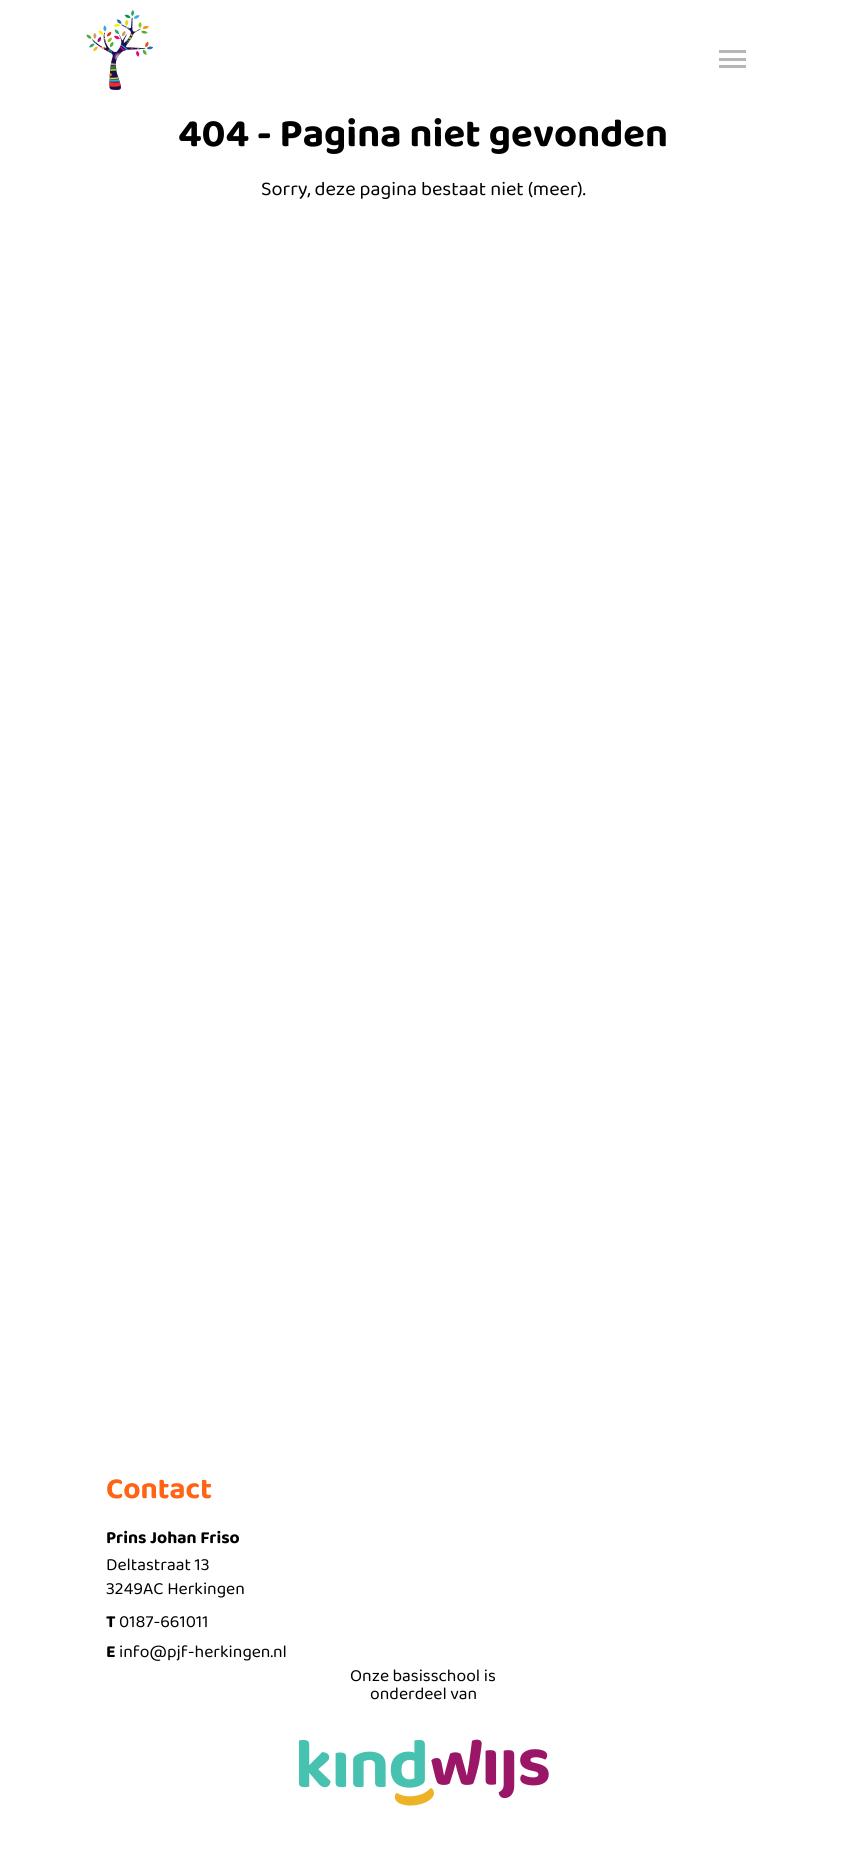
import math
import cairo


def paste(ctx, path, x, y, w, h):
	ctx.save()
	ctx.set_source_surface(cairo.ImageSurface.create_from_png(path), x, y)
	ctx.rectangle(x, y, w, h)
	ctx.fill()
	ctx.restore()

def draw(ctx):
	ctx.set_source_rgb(1, 1, 1)
	ctx.paint()
	paste(ctx, 'media/1.png', 86, 10, 67, 80)
	ctx.set_source_rgb(0.714, 0.714, 0.714)
	ctx.rectangle(719, 50, 27, 3)
	ctx.rectangle(719, 58, 27, 3)
	ctx.rectangle(719, 65, 27, 3)
	ctx.fill()
	ctx.select_font_face('Baloo 2', cairo.FONT_SLANT_NORMAL, cairo.FONT_WEIGHT_BOLD)
	ctx.set_font_size(40)
	ctx.set_source_rgb(0, 0, 0)
	ctx.move_to(178, 146)
	ctx.show_text('404 - Pagina niet gevonden')
	ctx.select_font_face('Baloo 2')
	ctx.set_font_size(20)
	ctx.move_to(261, 195)
	ctx.show_text('Sorry, deze pagina bestaat niet (meer).')
	ctx.select_font_face('Baloo 2', cairo.FONT_SLANT_NORMAL, cairo.FONT_WEIGHT_BOLD)
	ctx.set_font_size(30)
	ctx.set_source_rgb(1, 0.388, 0.086)
	ctx.move_to(106, 1498)
	ctx.show_text('Contact')
	ctx.set_font_size(17.5)
	ctx.set_source_rgb(0, 0, 0)
	ctx.move_to(106, 1543)
	ctx.show_text('Prins Johan Friso')
	ctx.select_font_face('Baloo 2')
	ctx.move_to(106, 1570)
	ctx.show_text('Deltastraat 13')
	ctx.move_to(106, 1594)
	ctx.show_text('3249AC Herkingen')
	ctx.select_font_face('Baloo 2', cairo.FONT_SLANT_NORMAL, cairo.FONT_WEIGHT_BOLD)
	ctx.move_to(106, 1627)
	ctx.show_text('T')
	ctx.select_font_face('Baloo 2')
	ctx.move_to(119, 1627)
	ctx.show_text('0187-661011')
	ctx.select_font_face('Baloo 2', cairo.FONT_SLANT_NORMAL, cairo.FONT_WEIGHT_BOLD)
	ctx.move_to(106, 1657)
	ctx.show_text('E')
	ctx.select_font_face('Baloo 2')
	for x, y, s in [
		(119, 1657, 'info@pjf-herkingen.nl'),
		(350, 1681, 'Onze basisschool is'),
		(370, 1699, 'onderdeel van'),
	]:
		ctx.move_to(x, y)
		ctx.show_text(s)
	paste(ctx, 'media/2.png', 299, 1739, 250, 67)


surface = cairo.ImageSurface(cairo.FORMAT_RGB24, 846, 1865)
ctx = cairo.Context(surface)
options = cairo.FontOptions()
options.set_hint_metrics(cairo.HINT_METRICS_OFF)
options.set_hint_style(cairo.HINT_STYLE_NONE)
ctx.set_font_options(options)
ctx.set_miter_limit(4)
draw(ctx)
surface.write_to_png('image.png')
